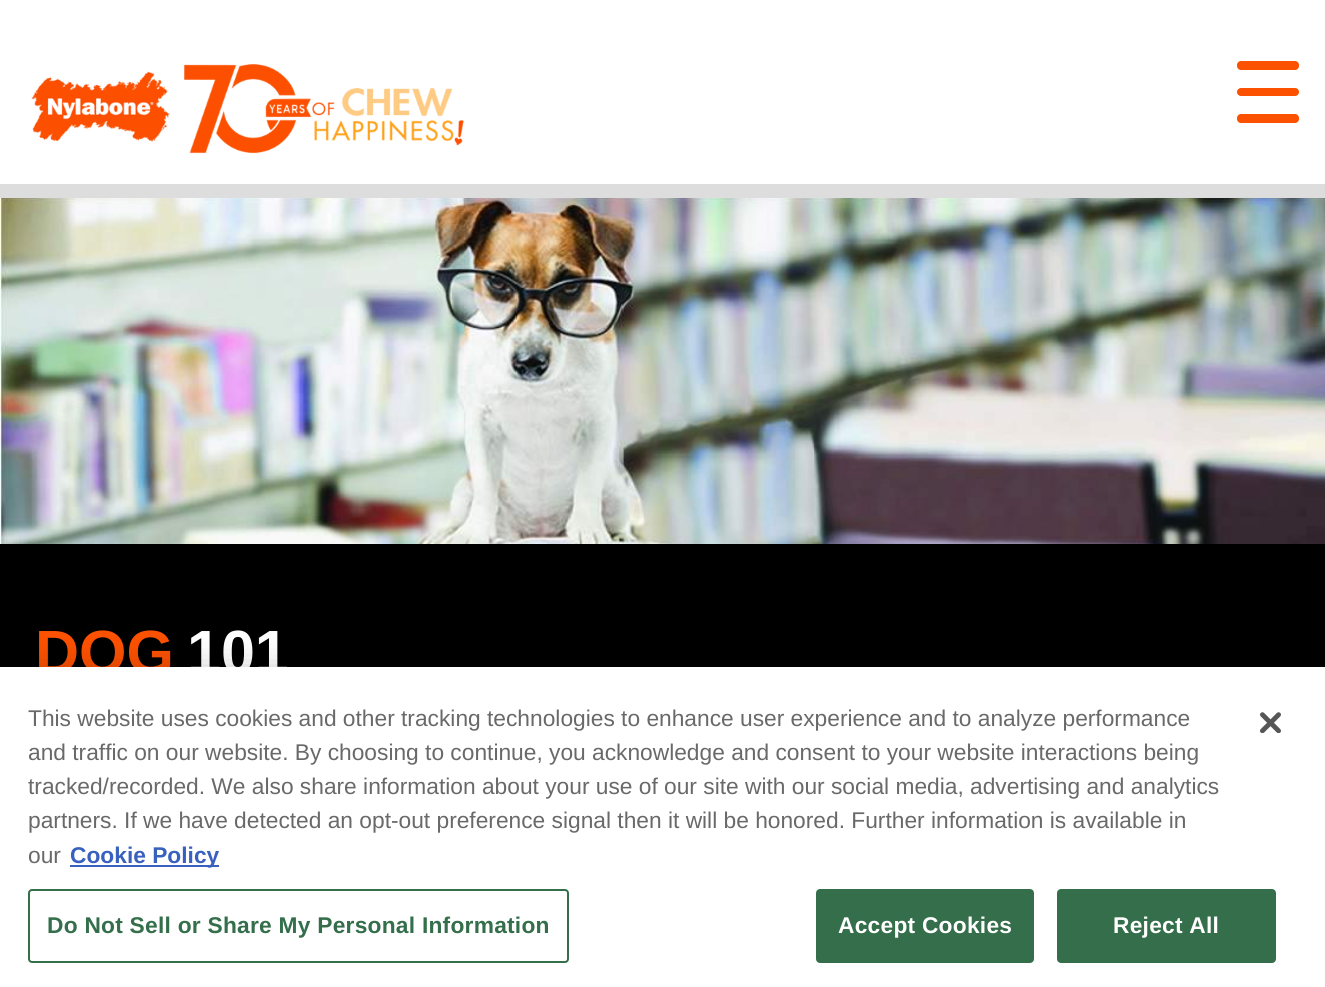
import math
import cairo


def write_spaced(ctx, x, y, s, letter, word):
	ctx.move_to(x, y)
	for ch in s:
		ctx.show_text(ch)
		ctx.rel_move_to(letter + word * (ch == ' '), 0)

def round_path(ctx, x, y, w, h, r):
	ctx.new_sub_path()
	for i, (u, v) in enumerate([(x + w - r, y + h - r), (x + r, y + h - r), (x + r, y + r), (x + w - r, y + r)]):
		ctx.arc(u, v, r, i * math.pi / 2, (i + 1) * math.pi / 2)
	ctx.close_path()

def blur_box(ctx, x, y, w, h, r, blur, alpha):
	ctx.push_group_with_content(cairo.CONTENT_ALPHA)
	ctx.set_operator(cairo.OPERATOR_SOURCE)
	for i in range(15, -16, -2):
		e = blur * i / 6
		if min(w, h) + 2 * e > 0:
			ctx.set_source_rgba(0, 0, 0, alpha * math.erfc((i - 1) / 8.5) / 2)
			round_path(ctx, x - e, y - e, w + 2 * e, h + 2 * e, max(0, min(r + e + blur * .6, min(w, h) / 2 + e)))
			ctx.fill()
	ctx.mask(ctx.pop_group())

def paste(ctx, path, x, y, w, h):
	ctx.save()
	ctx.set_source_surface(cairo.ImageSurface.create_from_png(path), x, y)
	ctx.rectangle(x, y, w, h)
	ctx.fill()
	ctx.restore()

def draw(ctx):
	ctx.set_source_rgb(1, 1, 1)
	ctx.paint()
	ctx.set_source_rgb(0.867, 0.867, 0.867)
	ctx.rectangle(0, 184, 1325, 14)
	ctx.fill()
	paste(ctx, 'media/1.png', 31, 64, 433, 90)
	ctx.set_source_rgb(0.988, 0.318, 0)
	round_path(ctx, 1237, 61, 62, 9, 4)
	ctx.fill()
	round_path(ctx, 1237, 88, 62, 8, 4)
	ctx.fill()
	round_path(ctx, 1237, 114, 62, 9, 4)
	ctx.fill()
	paste(ctx, 'media/2.png', 0, 198, 1325, 346)
	ctx.set_source_rgb(0, 0, 0)
	ctx.rectangle(0, 544, 1325, 123)
	ctx.fill()
	ctx.select_font_face('Liberation Sans', cairo.FONT_SLANT_NORMAL, cairo.FONT_WEIGHT_BOLD)
	ctx.set_font_size(61)
	ctx.set_source_rgb(0.988, 0.318, 0)
	ctx.move_to(35, 673)
	ctx.show_text('DOG')
	ctx.set_source_rgb(1, 1, 1)
	ctx.move_to(187, 673)
	ctx.show_text('101')
	ctx.set_source_rgb(0, 0, 0)
	blur_box(ctx, 0, 667, 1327, 320, 0, 16, 0.2)
	ctx.set_source_rgb(1, 1, 1)
	ctx.rectangle(0, 667, 1325, 320)
	ctx.fill()
	ctx.select_font_face('Liberation Sans')
	ctx.set_font_size(22.75)
	ctx.set_source_rgb(0.412, 0.412, 0.412)
	for x, y, s in [
		(28, 726, 'This website uses cookies and other tracking technologies to enhance user experience and to analyze performance'),
		(28, 760, 'and traffic on our website. By choosing to continue, you acknowledge and consent to your website interactions being'),
		(28, 794, 'tracked/recorded. We also share information about your use of our site with our social media, advertising and analytics'),
		(28, 828, 'partners. If we have detected an opt-out preference signal then it will be honored. Further information is available in'),
		(28, 863, 'our'),
	]:
		ctx.move_to(x, y)
		ctx.show_text(s)
	ctx.set_source_rgb(0.22, 0.376, 0.745)
	ctx.rectangle(70, 865, 149, 2)
	ctx.fill()
	ctx.select_font_face('Liberation Sans', cairo.FONT_SLANT_NORMAL, cairo.FONT_WEIGHT_BOLD)
	ctx.move_to(70, 863)
	ctx.show_text('Cookie Policy')
	round_path(ctx, 29, 890, 539, 72, 3)
	ctx.set_source_rgb(0.204, 0.431, 0.29)
	ctx.stroke()
	write_spaced(ctx, 47, 933, 'Do Not Sell or Share My Personal Information', 0.25, 0)
	round_path(ctx, 817, 890, 216, 72, 3)
	ctx.fill_preserve()
	ctx.stroke()
	ctx.set_source_rgb(1, 1, 1)
	write_spaced(ctx, 838, 933, 'Accept Cookies', 0.25, 0)
	ctx.set_source_rgb(0.204, 0.431, 0.29)
	round_path(ctx, 1058, 890, 217, 72, 3)
	ctx.fill_preserve()
	ctx.stroke()
	ctx.set_source_rgb(1, 1, 1)
	write_spaced(ctx, 1113, 933, 'Reject All', 0.25, 0)
	paste(ctx, 'media/3.png', 1260, 712, 21, 21)


surface = cairo.ImageSurface(cairo.FORMAT_RGB24, 1325, 987)
ctx = cairo.Context(surface)
options = cairo.FontOptions()
options.set_hint_metrics(cairo.HINT_METRICS_OFF)
options.set_hint_style(cairo.HINT_STYLE_NONE)
ctx.set_font_options(options)
ctx.set_miter_limit(4)
draw(ctx)
surface.write_to_png('image.png')
